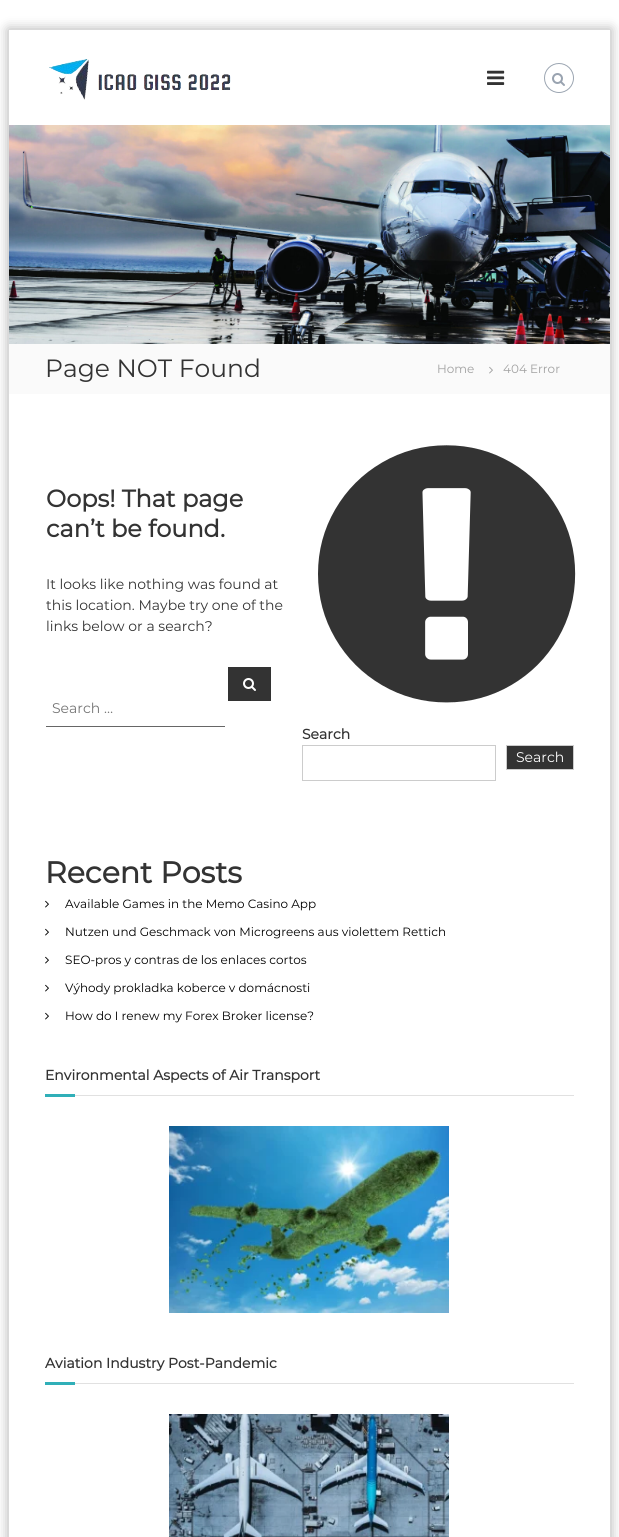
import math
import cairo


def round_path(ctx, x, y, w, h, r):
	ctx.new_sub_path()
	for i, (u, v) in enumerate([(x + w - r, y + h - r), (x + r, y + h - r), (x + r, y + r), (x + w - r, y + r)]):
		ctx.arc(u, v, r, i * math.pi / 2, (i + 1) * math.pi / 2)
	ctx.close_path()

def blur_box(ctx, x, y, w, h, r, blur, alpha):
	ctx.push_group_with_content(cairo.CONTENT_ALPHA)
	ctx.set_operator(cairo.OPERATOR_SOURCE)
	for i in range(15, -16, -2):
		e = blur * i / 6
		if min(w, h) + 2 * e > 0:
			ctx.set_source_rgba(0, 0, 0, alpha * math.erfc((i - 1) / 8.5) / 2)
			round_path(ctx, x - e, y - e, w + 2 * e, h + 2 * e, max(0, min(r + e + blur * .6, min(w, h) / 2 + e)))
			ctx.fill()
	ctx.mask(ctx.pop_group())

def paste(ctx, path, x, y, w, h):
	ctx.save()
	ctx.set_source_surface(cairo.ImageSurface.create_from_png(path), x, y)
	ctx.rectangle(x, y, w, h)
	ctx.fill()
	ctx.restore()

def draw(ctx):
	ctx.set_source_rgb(1, 1, 1)
	ctx.paint()
	ctx.save()
	ctx.set_fill_rule(cairo.FILL_RULE_EVEN_ODD)
	ctx.new_path()
	ctx.move_to(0, 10)
	ctx.line_to(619, 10)
	ctx.line_to(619, 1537)
	ctx.line_to(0, 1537)
	ctx.close_path()
	ctx.move_to(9, 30)
	ctx.line_to(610, 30)
	ctx.line_to(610, 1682)
	ctx.line_to(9, 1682)
	ctx.close_path()
	ctx.clip()
	ctx.set_source_rgb(0, 0, 0)
	blur_box(ctx, 8, 29, 603, 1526, 0, 6, 0.3)
	ctx.restore()
	paste(ctx, 'media/1.png', 49, 59, 182, 41)
	paste(ctx, 'media/2.png', 487, 70, 18, 15)
	ctx.arc(559, 78, 14.5, 0, 2 * math.pi)
	ctx.set_source_rgb(0.612, 0.651, 0.698)
	ctx.set_line_width(1)
	ctx.stroke()
	paste(ctx, 'media/3.png', 552, 73, 13, 13)
	paste(ctx, 'media/4.png', 9, 125, 601, 219)
	ctx.set_source_rgb(0.98, 0.98, 0.98)
	ctx.rectangle(9, 344, 601, 50)
	ctx.fill()
	ctx.select_font_face('Montserrat')
	ctx.set_font_size(25)
	ctx.set_source_rgb(0.2, 0.2, 0.2)
	ctx.move_to(45, 377)
	ctx.show_text('Page NOT Found')
	ctx.set_font_size(12)
	ctx.set_source_rgb(0.631, 0.631, 0.631)
	ctx.move_to(437, 373)
	ctx.show_text('Home')
	paste(ctx, 'media/5.png', 489, 366, 4, 8)
	ctx.move_to(503, 373)
	ctx.show_text('404 Error')
	ctx.select_font_face('Montserrat', cairo.FONT_SLANT_NORMAL, cairo.FONT_WEIGHT_BOLD)
	ctx.set_font_size(24)
	ctx.set_source_rgb(0.2, 0.2, 0.2)
	ctx.move_to(46, 507)
	ctx.show_text('Oops! That page')
	ctx.move_to(46, 537)
	ctx.show_text('can’t be found.')
	ctx.select_font_face('Montserrat')
	ctx.set_font_size(14)
	for x, y, s in [
		(46, 589, 'It looks like nothing was found at'),
		(46, 610, 'this location. Maybe try one of the'),
		(46, 631, 'links below or a search?'),
	]:
		ctx.move_to(x, y)
		ctx.show_text(s)
	ctx.rectangle(228, 667, 43, 34)
	ctx.fill()
	paste(ctx, 'media/6.png', 243, 678, 13, 13)
	ctx.set_source_rgb(0.4, 0.4, 0.4)
	ctx.rectangle(46, 726, 179, 1)
	ctx.fill()
	ctx.set_source_rgb(0.459, 0.459, 0.459)
	ctx.move_to(52, 713)
	ctx.show_text('Search …')
	paste(ctx, 'media/7.png', 318, 445, 258, 258)
	ctx.select_font_face('Montserrat', cairo.FONT_SLANT_NORMAL, cairo.FONT_WEIGHT_BOLD)
	ctx.set_source_rgb(0.2, 0.2, 0.2)
	ctx.move_to(302, 739)
	ctx.show_text('Search')
	ctx.rectangle(302.5, 745.5, 193, 35)
	ctx.set_source_rgb(0.8, 0.8, 0.8)
	ctx.stroke()
	ctx.set_source_rgb(0.2, 0.2, 0.2)
	ctx.rectangle(506.5, 745.5, 67, 24)
	ctx.fill_preserve()
	ctx.set_source_rgb(0.8, 0.8, 0.8)
	ctx.stroke()
	ctx.select_font_face('Montserrat')
	ctx.set_source_rgb(1, 1, 1)
	ctx.move_to(516, 762)
	ctx.show_text('Search')
	ctx.select_font_face('Montserrat', cairo.FONT_SLANT_NORMAL, cairo.FONT_WEIGHT_BOLD)
	ctx.set_font_size(30)
	ctx.set_source_rgb(0.2, 0.2, 0.2)
	ctx.move_to(45, 883)
	ctx.show_text('Recent Posts')
	paste(ctx, 'media/8.png', 45, 900, 4, 8)
	ctx.select_font_face('Montserrat')
	ctx.set_font_size(12)
	ctx.set_source_rgb(0, 0, 0)
	ctx.move_to(65, 908)
	ctx.show_text('Available Games in the Memo Casino App')
	paste(ctx, 'media/8.png', 45, 928, 4, 8)
	ctx.move_to(65, 936)
	ctx.show_text('Nutzen und Geschmack von Microgreens aus violettem Rettich')
	paste(ctx, 'media/8.png', 45, 956, 4, 8)
	ctx.move_to(65, 964)
	ctx.show_text('SEO-pros y contras de los enlaces cortos')
	paste(ctx, 'media/8.png', 45, 984, 4, 8)
	ctx.move_to(65, 992)
	ctx.show_text('Výhody prokladka koberce v domácnosti')
	paste(ctx, 'media/8.png', 45, 1012, 4, 8)
	ctx.move_to(65, 1020)
	ctx.show_text('How do I renew my Forex Broker license?')
	ctx.select_font_face('Montserrat', cairo.FONT_SLANT_NORMAL, cairo.FONT_WEIGHT_BOLD)
	ctx.set_font_size(14)
	ctx.set_source_rgb(0.2, 0.2, 0.2)
	ctx.move_to(45, 1080)
	ctx.show_text('Environmental Aspects of Air Transport')
	ctx.set_source_rgb(0.188, 0.686, 0.722)
	ctx.rectangle(45, 1094, 30, 3)
	ctx.fill()
	ctx.set_source_rgb(0.882, 0.882, 0.882)
	ctx.rectangle(75, 1095, 499, 1)
	ctx.fill()
	paste(ctx, 'media/9.png', 169, 1126, 280, 187)
	ctx.set_source_rgb(0.2, 0.2, 0.2)
	ctx.move_to(45, 1368)
	ctx.show_text('Aviation Industry Post-Pandemic')
	ctx.set_source_rgb(0.188, 0.686, 0.722)
	ctx.rectangle(45, 1382, 30, 3)
	ctx.fill()
	ctx.set_source_rgb(0.882, 0.882, 0.882)
	ctx.rectangle(75, 1383, 499, 1)
	ctx.fill()
	paste(ctx, 'media/10.png', 169, 1414, 280, 123)


surface = cairo.ImageSurface(cairo.FORMAT_RGB24, 619, 1537)
ctx = cairo.Context(surface)
options = cairo.FontOptions()
options.set_hint_metrics(cairo.HINT_METRICS_OFF)
options.set_hint_style(cairo.HINT_STYLE_NONE)
ctx.set_font_options(options)
ctx.set_miter_limit(4)
draw(ctx)
surface.write_to_png('image.png')
